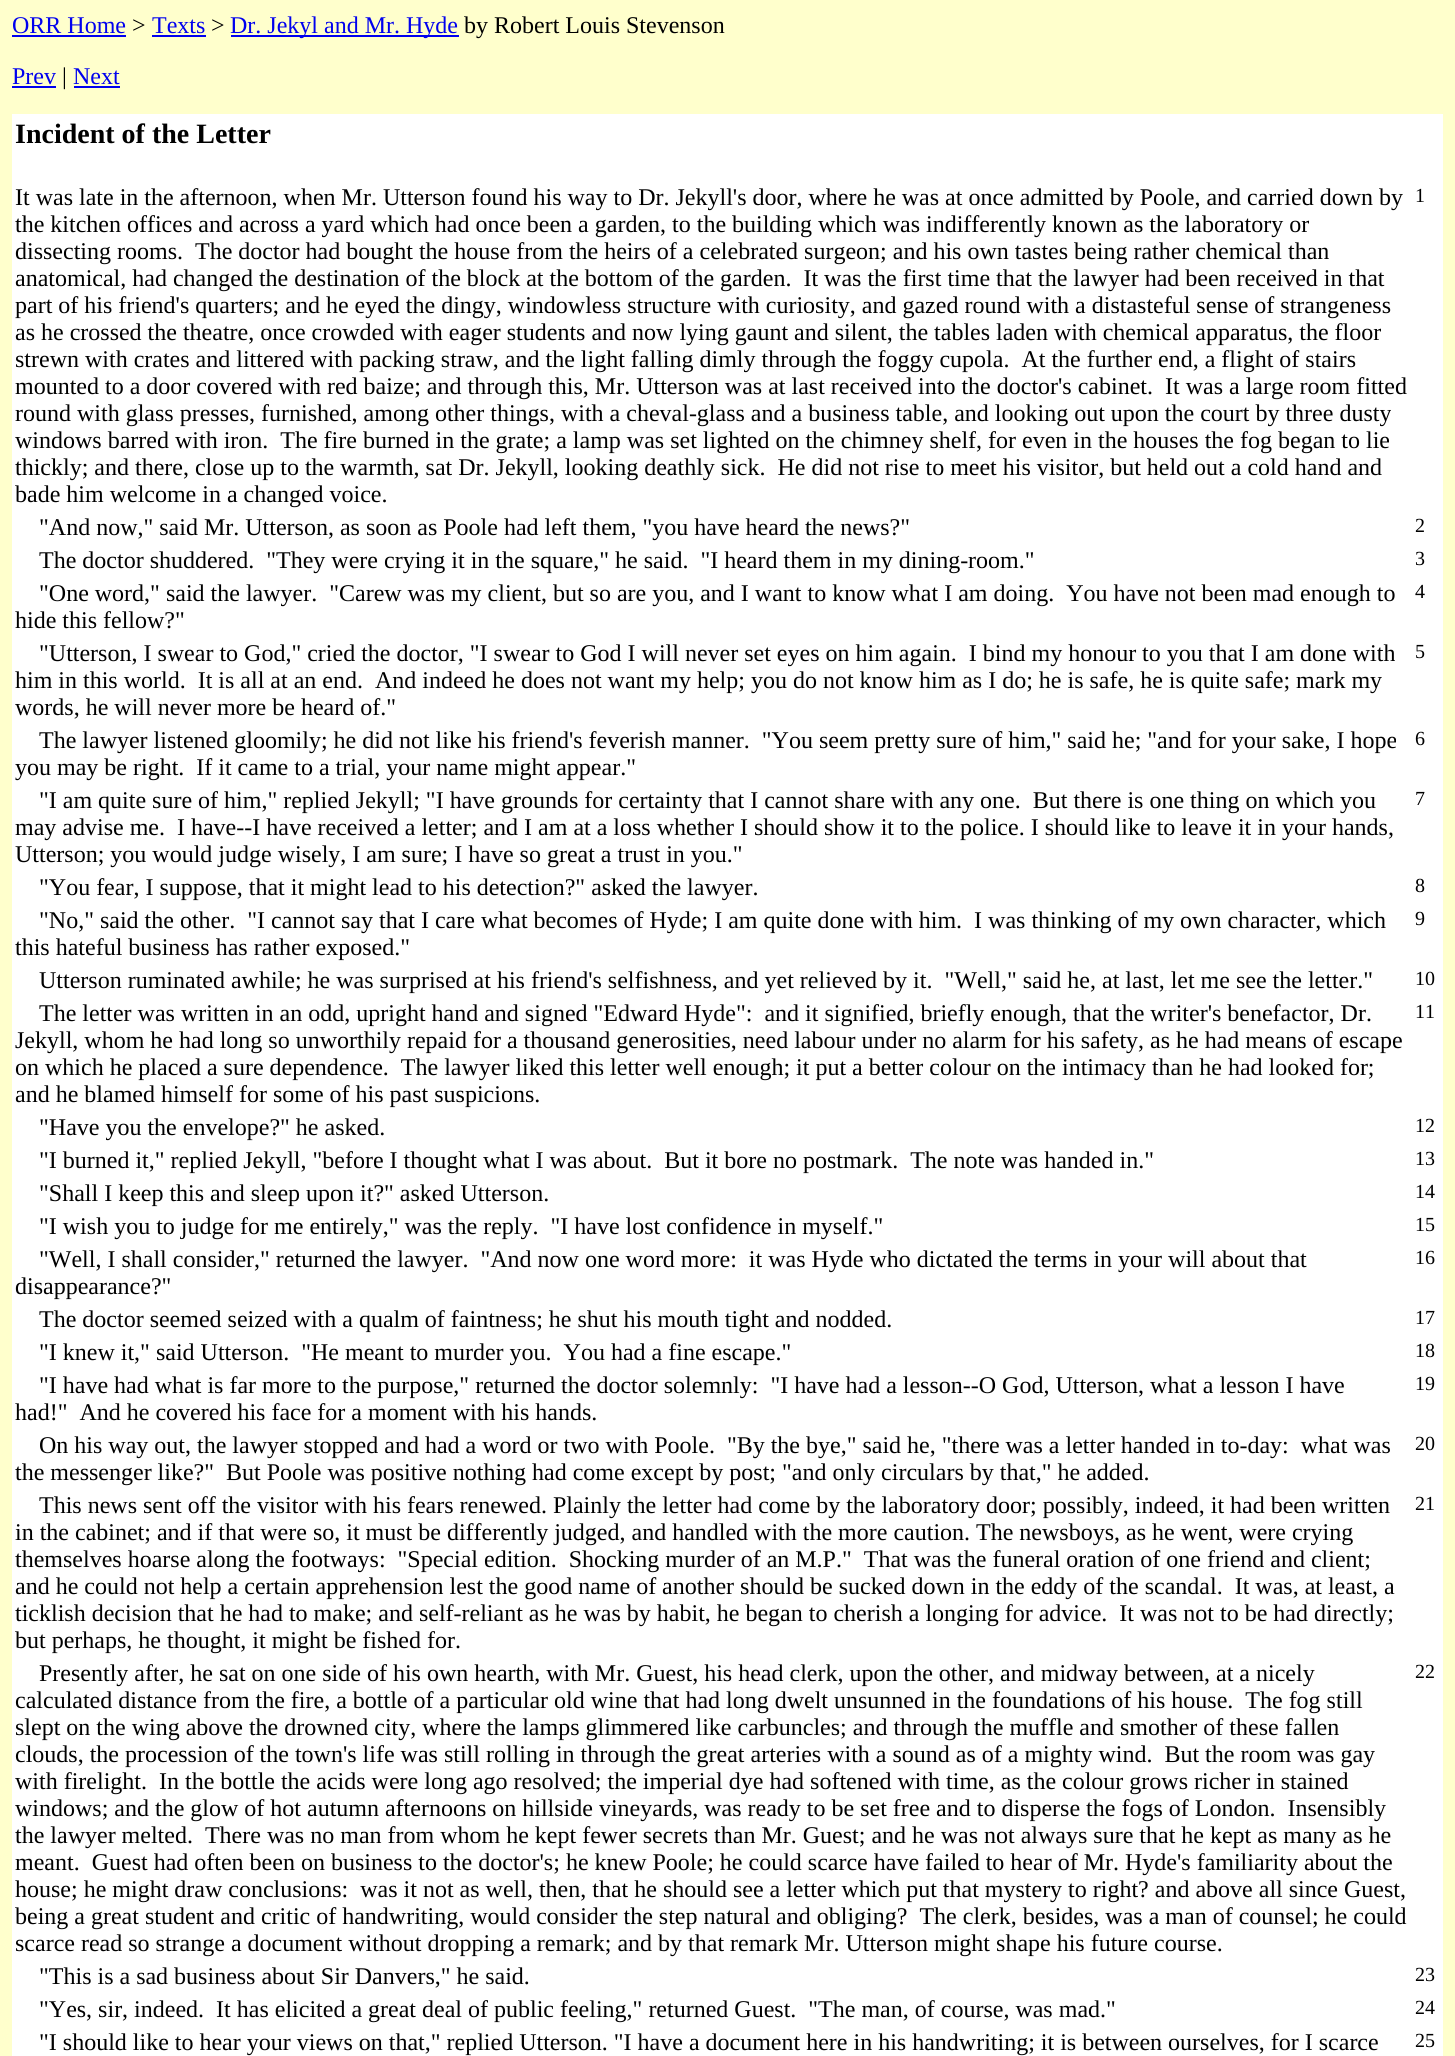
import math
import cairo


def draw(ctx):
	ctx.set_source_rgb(1, 1, 0.8)
	ctx.paint()
	ctx.select_font_face('Liberation Serif')
	ctx.set_font_size(24)
	ctx.set_source_rgb(0, 0, 0.933)
	ctx.move_to(12, 33)
	ctx.show_text('ORR Home')
	ctx.rectangle(12, 35, 114, 2)
	ctx.fill()
	ctx.set_source_rgb(0, 0, 0)
	ctx.move_to(132, 33)
	ctx.show_text('>')
	ctx.set_source_rgb(0, 0, 0.933)
	ctx.move_to(152, 33)
	ctx.show_text('Texts')
	ctx.rectangle(152, 35, 54, 2)
	ctx.fill()
	ctx.set_source_rgb(0, 0, 0)
	ctx.move_to(211, 33)
	ctx.show_text('>')
	ctx.set_source_rgb(0, 0, 0.933)
	ctx.rectangle(231, 35, 228, 2)
	ctx.fill()
	ctx.move_to(230, 33)
	ctx.show_text('Dr. Jekyl and Mr. Hyde')
	ctx.set_source_rgb(0, 0, 0)
	ctx.move_to(464, 33)
	ctx.show_text('by Robert Louis Stevenson')
	ctx.set_source_rgb(0, 0, 0.933)
	ctx.move_to(12, 84)
	ctx.show_text('Prev')
	ctx.rectangle(12, 86, 44, 2)
	ctx.fill()
	ctx.set_source_rgb(0, 0, 0)
	ctx.move_to(62, 84)
	ctx.show_text('|')
	ctx.set_source_rgb(0, 0, 0.933)
	ctx.move_to(73, 84)
	ctx.show_text('Next')
	ctx.rectangle(74, 86, 46, 2)
	ctx.fill()
	ctx.set_source_rgb(1, 1, 1)
	ctx.rectangle(12, 114, 1431, 1942)
	ctx.fill()
	ctx.select_font_face('Liberation Serif', cairo.FONT_SLANT_NORMAL, cairo.FONT_WEIGHT_BOLD)
	ctx.set_font_size(28)
	ctx.set_source_rgb(0, 0, 0)
	ctx.move_to(15, 143)
	ctx.show_text('Incident of the Letter')
	ctx.select_font_face('Liberation Serif')
	ctx.set_font_size(24)
	for x, y, s in [
		(15, 205, 'It was late in the afternoon, when Mr. Utterson found his way to Dr. Jekyll\'s door, where he was at once admitted by Poole, and carried down by'),
		(15, 232, 'the kitchen offices and across a yard which had once been a garden, to the building which was indifferently known as the laboratory or'),
		(15, 259, 'dissecting rooms.  The doctor had bought the house from the heirs of a celebrated surgeon; and his own tastes being rather chemical than'),
		(15, 286, 'anatomical, had changed the destination of the block at the bottom of the garden.  It was the first time that the lawyer had been received in that'),
		(15, 313, 'part of his friend\'s quarters; and he eyed the dingy, windowless structure with curiosity, and gazed round with a distasteful sense of strangeness'),
		(15, 340, 'as he crossed the theatre, once crowded with eager students and now lying gaunt and silent, the tables laden with chemical apparatus, the floor'),
		(15, 367, 'strewn with crates and littered with packing straw, and the light falling dimly through the foggy cupola.  At the further end, a flight of stairs'),
		(15, 394, 'mounted to a door covered with red baize; and through this, Mr. Utterson was at last received into the doctor\'s cabinet.  It was a large room fitted'),
		(15, 421, 'round with glass presses, furnished, among other things, with a cheval-glass and a business table, and looking out upon the court by three dusty'),
		(15, 448, 'windows barred with iron.  The fire burned in the grate; a lamp was set lighted on the chimney shelf, for even in the houses the fog began to lie'),
		(15, 475, 'thickly; and there, close up to the warmth, sat Dr. Jekyll, looking deathly sick.  He did not rise to meet his visitor, but held out a cold hand and'),
		(15, 502, 'bade him welcome in a changed voice.'),
	]:
		ctx.move_to(x, y)
		ctx.show_text(s)
	ctx.set_font_size(20)
	ctx.move_to(1415, 202)
	ctx.show_text('1')
	ctx.set_font_size(24)
	ctx.move_to(39, 535)
	ctx.show_text('"And now," said Mr. Utterson, as soon as Poole had left them, "you have heard the news?"')
	ctx.set_font_size(20)
	ctx.move_to(1415, 532)
	ctx.show_text('2')
	ctx.set_font_size(24)
	ctx.move_to(39, 568)
	ctx.show_text('The doctor shuddered.  "They were crying it in the square," he said.  "I heard them in my dining-room."')
	ctx.set_font_size(20)
	ctx.move_to(1415, 565)
	ctx.show_text('3')
	ctx.set_font_size(24)
	ctx.move_to(39, 601)
	ctx.show_text('"One word," said the lawyer.  "Carew was my client, but so are you, and I want to know what I am doing.  You have not been mad enough to')
	ctx.move_to(15, 628)
	ctx.show_text('hide this fellow?"')
	ctx.set_font_size(20)
	ctx.move_to(1415, 598)
	ctx.show_text('4')
	ctx.set_font_size(24)
	for x, y, s in [
		(39, 661, '"Utterson, I swear to God," cried the doctor, "I swear to God I will never set eyes on him again.  I bind my honour to you that I am done with'),
		(15, 688, 'him in this world.  It is all at an end.  And indeed he does not want my help; you do not know him as I do; he is safe, he is quite safe; mark my'),
		(15, 715, 'words, he will never more be heard of."'),
	]:
		ctx.move_to(x, y)
		ctx.show_text(s)
	ctx.set_font_size(20)
	ctx.move_to(1415, 658)
	ctx.show_text('5')
	ctx.set_font_size(24)
	ctx.move_to(39, 748)
	ctx.show_text('The lawyer listened gloomily; he did not like his friend\'s feverish manner.  "You seem pretty sure of him," said he; "and for your sake, I hope')
	ctx.move_to(15, 775)
	ctx.show_text('you may be right.  If it came to a trial, your name might appear."')
	ctx.set_font_size(20)
	ctx.move_to(1415, 745)
	ctx.show_text('6')
	ctx.set_font_size(24)
	for x, y, s in [
		(39, 808, '"I am quite sure of him," replied Jekyll; "I have grounds for certainty that I cannot share with any one.  But there is one thing on which you'),
		(15, 835, 'may advise me.  I have--I have received a letter; and I am at a loss whether I should show it to the police. I should like to leave it in your hands,'),
		(15, 862, 'Utterson; you would judge wisely, I am sure; I have so great a trust in you."'),
	]:
		ctx.move_to(x, y)
		ctx.show_text(s)
	ctx.set_font_size(20)
	ctx.move_to(1415, 805)
	ctx.show_text('7')
	ctx.set_font_size(24)
	ctx.move_to(39, 895)
	ctx.show_text('"You fear, I suppose, that it might lead to his detection?" asked the lawyer.')
	ctx.set_font_size(20)
	ctx.move_to(1415, 892)
	ctx.show_text('8')
	ctx.set_font_size(24)
	ctx.move_to(39, 928)
	ctx.show_text('"No," said the other.  "I cannot say that I care what becomes of Hyde; I am quite done with him.  I was thinking of my own character, which')
	ctx.move_to(15, 955)
	ctx.show_text('this hateful business has rather exposed."')
	ctx.set_font_size(20)
	ctx.move_to(1415, 925)
	ctx.show_text('9')
	ctx.set_font_size(24)
	ctx.move_to(39, 988)
	ctx.show_text('Utterson ruminated awhile; he was surprised at his friend\'s selfishness, and yet relieved by it.  "Well," said he, at last, let me see the letter."')
	ctx.set_font_size(20)
	ctx.move_to(1415, 985)
	ctx.show_text('10')
	ctx.set_font_size(24)
	for x, y, s in [
		(39, 1021, 'The letter was written in an odd, upright hand and signed "Edward Hyde":  and it signified, briefly enough, that the writer\'s benefactor, Dr.'),
		(15, 1048, 'Jekyll, whom he had long so unworthily repaid for a thousand generosities, need labour under no alarm for his safety, as he had means of escape'),
		(15, 1075, 'on which he placed a sure dependence.  The lawyer liked this letter well enough; it put a better colour on the intimacy than he had looked for;'),
		(15, 1102, 'and he blamed himself for some of his past suspicions.'),
	]:
		ctx.move_to(x, y)
		ctx.show_text(s)
	ctx.set_font_size(20)
	ctx.move_to(1415, 1018)
	ctx.show_text('11')
	ctx.set_font_size(24)
	ctx.move_to(39, 1135)
	ctx.show_text('"Have you the envelope?" he asked.')
	ctx.set_font_size(20)
	ctx.move_to(1415, 1132)
	ctx.show_text('12')
	ctx.set_font_size(24)
	ctx.move_to(39, 1168)
	ctx.show_text('"I burned it," replied Jekyll, "before I thought what I was about.  But it bore no postmark.  The note was handed in."')
	ctx.set_font_size(20)
	ctx.move_to(1415, 1165)
	ctx.show_text('13')
	ctx.set_font_size(24)
	ctx.move_to(39, 1201)
	ctx.show_text('"Shall I keep this and sleep upon it?" asked Utterson.')
	ctx.set_font_size(20)
	ctx.move_to(1415, 1198)
	ctx.show_text('14')
	ctx.set_font_size(24)
	ctx.move_to(39, 1234)
	ctx.show_text('"I wish you to judge for me entirely," was the reply.  "I have lost confidence in myself."')
	ctx.set_font_size(20)
	ctx.move_to(1415, 1231)
	ctx.show_text('15')
	ctx.set_font_size(24)
	ctx.move_to(39, 1267)
	ctx.show_text('"Well, I shall consider," returned the lawyer.  "And now one word more:  it was Hyde who dictated the terms in your will about that')
	ctx.move_to(15, 1294)
	ctx.show_text('disappearance?"')
	ctx.set_font_size(20)
	ctx.move_to(1415, 1264)
	ctx.show_text('16')
	ctx.set_font_size(24)
	ctx.move_to(39, 1327)
	ctx.show_text('The doctor seemed seized with a qualm of faintness; he shut his mouth tight and nodded.')
	ctx.set_font_size(20)
	ctx.move_to(1415, 1324)
	ctx.show_text('17')
	ctx.set_font_size(24)
	ctx.move_to(39, 1360)
	ctx.show_text('"I knew it," said Utterson.  "He meant to murder you.  You had a fine escape."')
	ctx.set_font_size(20)
	ctx.move_to(1415, 1357)
	ctx.show_text('18')
	ctx.set_font_size(24)
	ctx.move_to(39, 1393)
	ctx.show_text('"I have had what is far more to the purpose," returned the doctor solemnly:  "I have had a lesson--O God, Utterson, what a lesson I have')
	ctx.move_to(15, 1420)
	ctx.show_text('had!"  And he covered his face for a moment with his hands.')
	ctx.set_font_size(20)
	ctx.move_to(1415, 1390)
	ctx.show_text('19')
	ctx.set_font_size(24)
	ctx.move_to(39, 1453)
	ctx.show_text('On his way out, the lawyer stopped and had a word or two with Poole.  "By the bye," said he, "there was a letter handed in to-day:  what was')
	ctx.move_to(15, 1480)
	ctx.show_text('the messenger like?"  But Poole was positive nothing had come except by post; "and only circulars by that," he added.')
	ctx.set_font_size(20)
	ctx.move_to(1415, 1450)
	ctx.show_text('20')
	ctx.set_font_size(24)
	for x, y, s in [
		(39, 1513, 'This news sent off the visitor with his fears renewed. Plainly the letter had come by the laboratory door; possibly, indeed, it had been written'),
		(15, 1540, 'in the cabinet; and if that were so, it must be differently judged, and handled with the more caution. The newsboys, as he went, were crying'),
		(15, 1567, 'themselves hoarse along the footways:  "Special edition.  Shocking murder of an M.P."  That was the funeral oration of one friend and client;'),
		(15, 1594, 'and he could not help a certain apprehension lest the good name of another should be sucked down in the eddy of the scandal.  It was, at least, a'),
		(15, 1621, 'ticklish decision that he had to make; and self-reliant as he was by habit, he began to cherish a longing for advice.  It was not to be had directly;'),
		(15, 1648, 'but perhaps, he thought, it might be fished for.'),
	]:
		ctx.move_to(x, y)
		ctx.show_text(s)
	ctx.set_font_size(20)
	ctx.move_to(1415, 1510)
	ctx.show_text('21')
	ctx.set_font_size(24)
	for x, y, s in [
		(39, 1681, 'Presently after, he sat on one side of his own hearth, with Mr. Guest, his head clerk, upon the other, and midway between, at a nicely'),
		(15, 1708, 'calculated distance from the fire, a bottle of a particular old wine that had long dwelt unsunned in the foundations of his house.  The fog still'),
		(15, 1735, 'slept on the wing above the drowned city, where the lamps glimmered like carbuncles; and through the muffle and smother of these fallen'),
		(15, 1762, 'clouds, the procession of the town\'s life was still rolling in through the great arteries with a sound as of a mighty wind.  But the room was gay'),
		(15, 1789, 'with firelight.  In the bottle the acids were long ago resolved; the imperial dye had softened with time, as the colour grows richer in stained'),
		(15, 1816, 'windows; and the glow of hot autumn afternoons on hillside vineyards, was ready to be set free and to disperse the fogs of London.  Insensibly'),
		(15, 1843, 'the lawyer melted.  There was no man from whom he kept fewer secrets than Mr. Guest; and he was not always sure that he kept as many as he'),
		(15, 1870, 'meant.  Guest had often been on business to the doctor\'s; he knew Poole; he could scarce have failed to hear of Mr. Hyde\'s familiarity about the'),
		(15, 1897, 'house; he might draw conclusions:  was it not as well, then, that he should see a letter which put that mystery to right? and above all since Guest,'),
		(15, 1924, 'being a great student and critic of handwriting, would consider the step natural and obliging?  The clerk, besides, was a man of counsel; he could'),
		(15, 1951, 'scarce read so strange a document without dropping a remark; and by that remark Mr. Utterson might shape his future course.'),
	]:
		ctx.move_to(x, y)
		ctx.show_text(s)
	ctx.set_font_size(20)
	ctx.move_to(1415, 1678)
	ctx.show_text('22')
	ctx.set_font_size(24)
	ctx.move_to(39, 1984)
	ctx.show_text('"This is a sad business about Sir Danvers," he said.')
	ctx.set_font_size(20)
	ctx.move_to(1415, 1981)
	ctx.show_text('23')
	ctx.set_font_size(24)
	ctx.move_to(39, 2017)
	ctx.show_text('"Yes, sir, indeed.  It has elicited a great deal of public feeling," returned Guest.  "The man, of course, was mad."')
	ctx.set_font_size(20)
	ctx.move_to(1415, 2014)
	ctx.show_text('24')
	ctx.set_font_size(24)
	ctx.move_to(39, 2050)
	ctx.show_text('"I should like to hear your views on that," replied Utterson. "I have a document here in his handwriting; it is between ourselves, for I scarce')
	ctx.set_font_size(20)
	ctx.move_to(1415, 2047)
	ctx.show_text('25')


surface = cairo.ImageSurface(cairo.FORMAT_RGB24, 1455, 2056)
ctx = cairo.Context(surface)
options = cairo.FontOptions()
options.set_hint_metrics(cairo.HINT_METRICS_OFF)
options.set_hint_style(cairo.HINT_STYLE_NONE)
ctx.set_font_options(options)
ctx.set_miter_limit(4)
draw(ctx)
surface.write_to_png('image.png')
